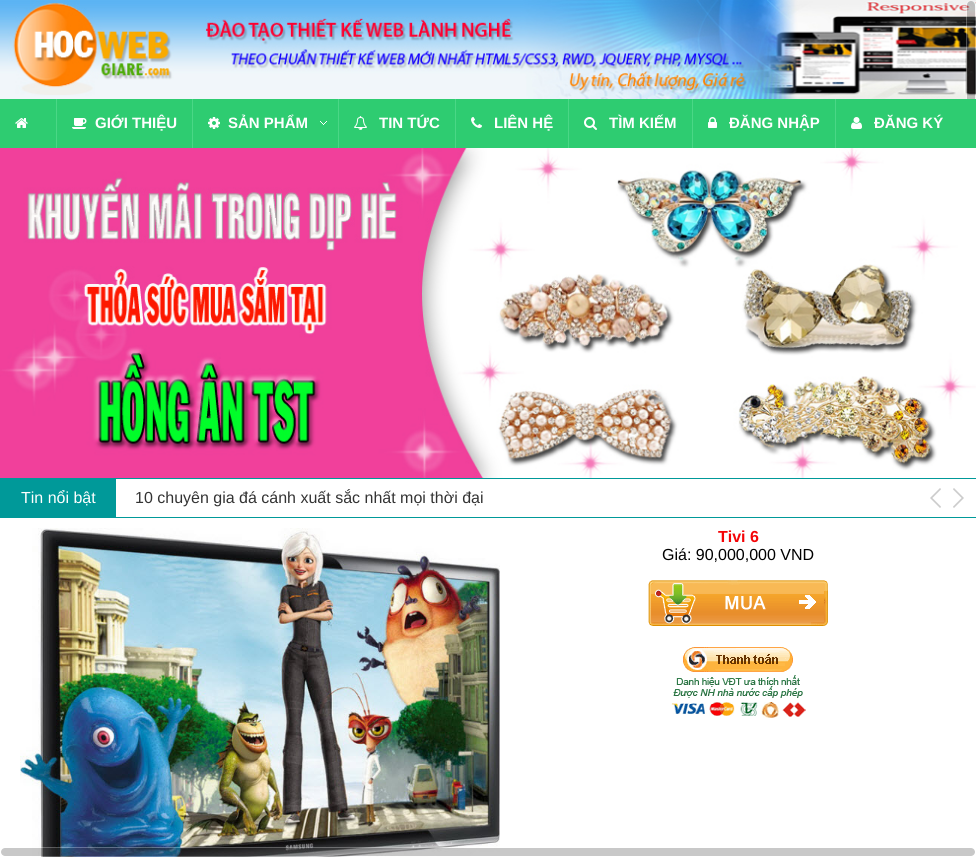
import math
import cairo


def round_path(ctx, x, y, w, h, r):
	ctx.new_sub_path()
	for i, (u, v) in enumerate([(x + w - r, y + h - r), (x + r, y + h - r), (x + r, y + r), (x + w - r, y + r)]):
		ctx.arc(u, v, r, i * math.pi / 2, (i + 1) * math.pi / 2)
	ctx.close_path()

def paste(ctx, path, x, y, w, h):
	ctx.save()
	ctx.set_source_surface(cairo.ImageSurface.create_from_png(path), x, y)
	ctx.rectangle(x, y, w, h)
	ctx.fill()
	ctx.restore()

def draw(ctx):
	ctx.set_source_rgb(1, 1, 1)
	ctx.paint()
	paste(ctx, 'media/1.png', 0, 0, 976, 99)
	ctx.set_source_rgba(0.259, 0.259, 0.259, 0.29)
	round_path(ctx, 967, 1, 8, 124, 4)
	ctx.fill()
	round_path(ctx, 966.5, 0.5, 9, 125, 4.5)
	ctx.set_source_rgba(1, 1, 1, 0.29)
	ctx.set_line_width(1)
	ctx.stroke()
	ctx.set_source_rgb(0.18, 0.8, 0.443)
	ctx.rectangle(0, 99, 976, 49)
	ctx.fill()
	paste(ctx, 'media/2.png', 15, 118, 13, 10)
	ctx.set_source_rgb(0.29, 0.843, 0.525)
	ctx.rectangle(56, 99, 1, 49)
	ctx.fill()
	paste(ctx, 'media/3.png', 72, 118, 15, 11)
	ctx.select_font_face('Liberation Sans', cairo.FONT_SLANT_NORMAL, cairo.FONT_WEIGHT_BOLD)
	ctx.set_font_size(15)
	ctx.set_source_rgb(1, 1, 1)
	ctx.move_to(95, 128)
	ctx.show_text('GIỚI THIỆU')
	ctx.set_source_rgb(0.29, 0.843, 0.525)
	ctx.rectangle(192, 99, 1, 49)
	ctx.fill()
	paste(ctx, 'media/4.png', 320, 121, 7, 4)
	paste(ctx, 'media/5.png', 208, 117, 12, 12)
	ctx.set_source_rgb(1, 1, 1)
	ctx.move_to(228, 128)
	ctx.show_text('SẢN PHẨM')
	ctx.set_source_rgb(0.29, 0.843, 0.525)
	ctx.rectangle(338, 99, 1, 49)
	ctx.fill()
	paste(ctx, 'media/6.png', 354, 116, 13, 14)
	ctx.set_source_rgb(1, 1, 1)
	ctx.move_to(379, 128)
	ctx.show_text('TIN TỨC')
	ctx.set_source_rgb(0.29, 0.843, 0.525)
	ctx.rectangle(455, 99, 1, 49)
	ctx.fill()
	paste(ctx, 'media/7.png', 471, 117, 11, 11)
	ctx.set_source_rgb(1, 1, 1)
	ctx.move_to(494, 128)
	ctx.show_text('LIÊN HỆ')
	ctx.set_source_rgb(0.29, 0.843, 0.525)
	ctx.rectangle(568, 99, 1, 49)
	ctx.fill()
	paste(ctx, 'media/8.png', 584, 117, 13, 13)
	ctx.set_source_rgb(1, 1, 1)
	ctx.move_to(609, 128)
	ctx.show_text('TÌM KIẾM')
	ctx.set_source_rgb(0.29, 0.843, 0.525)
	ctx.rectangle(692, 99, 1, 49)
	ctx.fill()
	paste(ctx, 'media/9.png', 708, 117, 9, 11)
	ctx.set_source_rgb(1, 1, 1)
	ctx.move_to(729, 128)
	ctx.show_text('ĐĂNG NHẬP')
	ctx.set_source_rgb(0.29, 0.843, 0.525)
	ctx.rectangle(835, 99, 1, 49)
	ctx.fill()
	paste(ctx, 'media/10.png', 851, 117, 11, 12)
	ctx.set_source_rgb(1, 1, 1)
	ctx.move_to(874, 128)
	ctx.show_text('ĐĂNG KÝ')
	paste(ctx, 'media/11.png', 0, 148, 976, 330)
	ctx.rectangle(0.5, 478.5, 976, 39)
	ctx.set_source_rgb(0, 0.6, 0.6)
	ctx.stroke()
	ctx.rectangle(1, 479, 115, 38)
	ctx.fill()
	ctx.select_font_face('Liberation Sans')
	ctx.set_font_size(16)
	ctx.set_source_rgb(1, 1, 1)
	ctx.move_to(21, 503)
	ctx.show_text('Tin nổi bật')
	ctx.set_source_rgb(0.2, 0.2, 0.2)
	ctx.move_to(135, 503)
	ctx.show_text('10 chuyên gia đá cánh xuất sắc nhất mọi thời đại')
	paste(ctx, 'media/12.png', 930, 488, 11, 20)
	paste(ctx, 'media/13.png', 953, 488, 11, 20)
	paste(ctx, 'media/14.png', 20, 528, 480, 329)
	ctx.select_font_face('Liberation Sans', cairo.FONT_SLANT_NORMAL, cairo.FONT_WEIGHT_BOLD)
	ctx.set_source_rgb(0.957, 0.016, 0.031)
	ctx.move_to(718, 542)
	ctx.show_text('Tivi 6')
	ctx.select_font_face('Liberation Sans')
	ctx.set_source_rgb(0, 0, 0)
	ctx.move_to(662, 560)
	ctx.show_text('Giá: 90,000,000 VND')
	paste(ctx, 'media/15.png', 648, 580, 180, 46)
	paste(ctx, 'media/16.png', 671, 647, 135, 71)
	ctx.set_source_rgba(0.259, 0.259, 0.259, 0.29)
	round_path(ctx, 1, 848, 974, 8, 4)
	ctx.fill()
	round_path(ctx, 0.5, 847.5, 975, 9, 4.5)
	ctx.set_source_rgba(1, 1, 1, 0.29)
	ctx.stroke()


surface = cairo.ImageSurface(cairo.FORMAT_RGB24, 976, 857)
ctx = cairo.Context(surface)
options = cairo.FontOptions()
options.set_hint_metrics(cairo.HINT_METRICS_OFF)
options.set_hint_style(cairo.HINT_STYLE_NONE)
ctx.set_font_options(options)
ctx.set_miter_limit(4)
draw(ctx)
surface.write_to_png('image.png')
